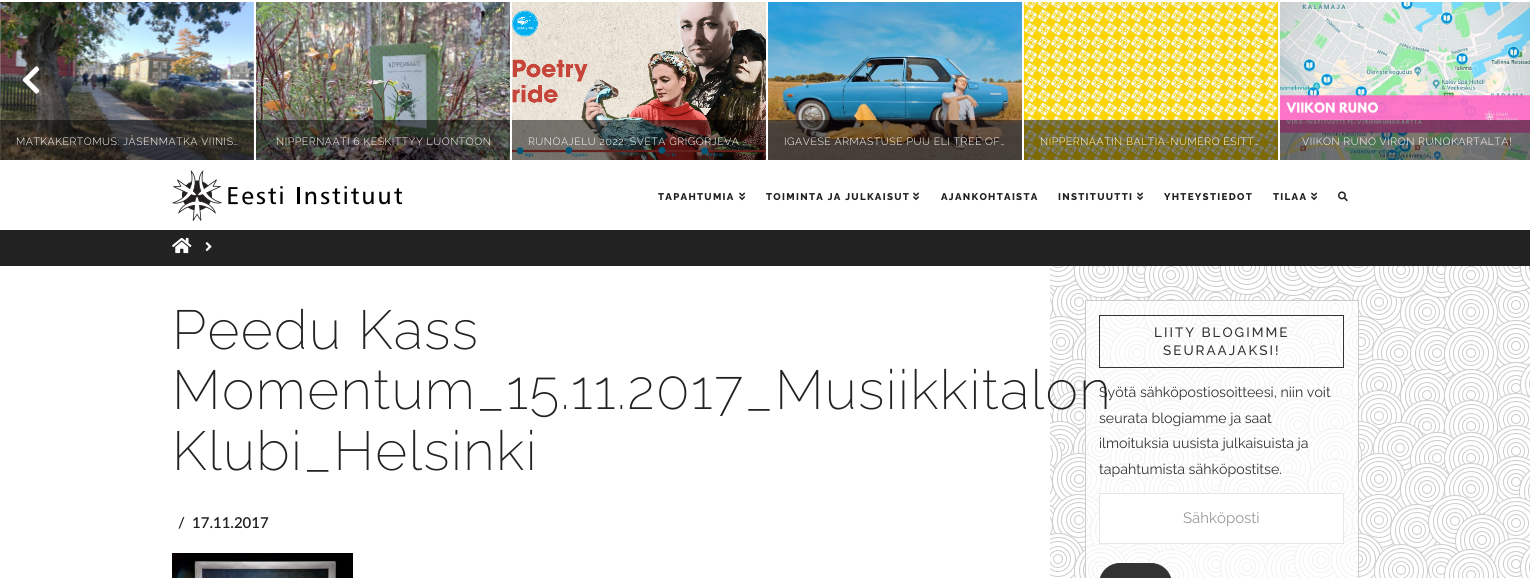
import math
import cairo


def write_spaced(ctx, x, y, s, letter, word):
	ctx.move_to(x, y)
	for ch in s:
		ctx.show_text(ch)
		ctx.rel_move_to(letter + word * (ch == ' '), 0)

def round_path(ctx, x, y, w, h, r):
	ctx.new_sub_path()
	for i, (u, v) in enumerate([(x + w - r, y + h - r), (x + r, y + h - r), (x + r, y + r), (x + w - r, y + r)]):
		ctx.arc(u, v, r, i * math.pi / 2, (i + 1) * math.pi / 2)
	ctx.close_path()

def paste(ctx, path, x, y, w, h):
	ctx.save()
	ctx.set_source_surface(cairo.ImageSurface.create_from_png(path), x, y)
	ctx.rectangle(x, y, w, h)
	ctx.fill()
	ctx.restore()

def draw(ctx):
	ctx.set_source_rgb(1, 1, 1)
	ctx.paint()
	paste(ctx, 'media/1.png', 1050, 266, 480, 312)
	paste(ctx, 'media/4.png', 0, 2, 254, 158)
	paste(ctx, 'media/2.png', 22, 66, 18, 28)
	paste(ctx, 'media/9.png', 1280, 2, 250, 158)
	paste(ctx, 'media/3.png', 1489, 66, 17, 28)
	ctx.set_source_rgba(0, 0, 0, 0.5)
	ctx.rectangle(0, 120, 254, 40)
	ctx.fill()
	ctx.select_font_face('Raleway Light')
	ctx.set_font_size(10.5)
	ctx.set_source_rgb(1, 1, 1)
	write_spaced(ctx, 16, 145, 'MATKAKERTOMUS: JÄSENMATKA VIINIS…', 0.55, 0)
	paste(ctx, 'media/5.png', 256, 2, 254, 158)
	ctx.set_source_rgba(0, 0, 0, 0.5)
	ctx.rectangle(256, 120, 254, 40)
	ctx.fill()
	ctx.set_source_rgb(1, 1, 1)
	write_spaced(ctx, 276, 145, 'NIPPERNAATI 6 KESKITTYY LUONTOON', 0.55, 0)
	paste(ctx, 'media/6.png', 512, 2, 254, 158)
	ctx.set_source_rgba(0, 0, 0, 0.5)
	ctx.rectangle(512, 120, 254, 40)
	ctx.fill()
	ctx.set_source_rgb(1, 1, 1)
	write_spaced(ctx, 528, 145, 'RUNOAJELU 2022: SVETA GRIGORJEVA …', 0.55, 0)
	paste(ctx, 'media/7.png', 768, 2, 254, 158)
	ctx.set_source_rgba(0, 0, 0, 0.5)
	ctx.rectangle(768, 120, 254, 40)
	ctx.fill()
	ctx.set_source_rgb(1, 1, 1)
	write_spaced(ctx, 784, 145, 'IGAVESE ARMASTUSE PUU ELI TREE OF…', 0.55, 0)
	paste(ctx, 'media/8.png', 1024, 2, 254, 158)
	ctx.set_source_rgba(0, 0, 0, 0.5)
	ctx.rectangle(1024, 120, 254, 40)
	ctx.fill()
	ctx.set_source_rgb(1, 1, 1)
	write_spaced(ctx, 1040, 145, 'NIPPERNAATIN BALTIA-NUMERO ESITT…', 0.55, 0)
	ctx.set_source_rgba(0, 0, 0, 0.5)
	ctx.rectangle(1280, 120, 250, 40)
	ctx.fill()
	ctx.set_source_rgb(1, 1, 1)
	write_spaced(ctx, 1302, 145, 'VIIKON RUNO VIRON RUNOKARTALTA!', 0.55, 0)
	ctx.set_source_rgb(0.133, 0.133, 0.133)
	ctx.rectangle(0, 230, 1530, 36)
	ctx.fill()
	paste(ctx, 'media/10.png', 172, 170, 230, 51)
	ctx.select_font_face('Raleway ExtraBold')
	ctx.set_font_size(9.75)
	write_spaced(ctx, 658, 200, 'TAPAHTUMIA', 1.3, 0)
	paste(ctx, 'media/11.png', 739, 192, 7, 9)
	write_spaced(ctx, 766, 200, 'TOIMINTA JA JULKAISUT', 1.3, 0)
	paste(ctx, 'media/11.png', 913, 192, 7, 9)
	write_spaced(ctx, 941, 200, 'AJANKOHTAISTA', 1.3, 0)
	write_spaced(ctx, 1058, 200, 'INSTITUUTTI', 1.3, 0)
	paste(ctx, 'media/11.png', 1137, 192, 7, 9)
	write_spaced(ctx, 1164, 200, 'YHTEYSTIEDOT', 1.3, 0)
	write_spaced(ctx, 1273, 200, 'TILAA', 1.3, 0)
	paste(ctx, 'media/11.png', 1311, 192, 7, 9)
	paste(ctx, 'media/12.png', 1338, 191, 10, 11)
	paste(ctx, 'media/13.png', 172, 237, 20, 17)
	paste(ctx, 'media/14.png', 205, 242, 7, 9)
	ctx.select_font_face('Raleway ExtraLight')
	ctx.set_font_size(55)
	write_spaced(ctx, 172, 349, 'Peedu Kass', 1.4, 0)
	ctx.set_source_rgba(1, 1, 1, 0.75)
	ctx.rectangle(1085.5, 300.5, 273, 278)
	ctx.fill_preserve()
	ctx.set_source_rgb(0.8, 0.8, 0.8)
	ctx.set_line_width(1)
	ctx.stroke()
	ctx.select_font_face('Raleway')
	ctx.set_font_size(14.2)
	ctx.set_source_rgb(0.2, 0.2, 0.2)
	ctx.move_to(1099, 397)
	ctx.show_text('Syötä sähköpostiosoitteesi, niin voit')
	ctx.select_font_face('Raleway ExtraLight')
	ctx.set_font_size(55)
	ctx.set_source_rgb(0.133, 0.133, 0.133)
	write_spaced(ctx, 172, 409, 'Momentum_15.11.2017_Musiikkitalon', 1.4, 0)
	write_spaced(ctx, 172, 470, 'Klubi_Helsinki', 1.4, 0)
	ctx.select_font_face('Lato SemiBold')
	ctx.set_font_size(15)
	ctx.move_to(178, 528)
	ctx.show_text('/')
	ctx.move_to(192, 528)
	ctx.show_text('17.11.2017')
	paste(ctx, 'media/15.png', 172, 553, 181, 25)
	ctx.rectangle(1099.5, 315.5, 244, 52)
	ctx.set_source_rgb(0.2, 0.2, 0.2)
	ctx.stroke()
	ctx.select_font_face('Raleway Medium')
	ctx.set_font_size(13.5)
	write_spaced(ctx, 1154, 337, 'LIITY BLOGIMME', 2, 0)
	write_spaced(ctx, 1163, 355, 'SEURAAJAKSI!', 2, 0)
	ctx.select_font_face('Raleway')
	ctx.set_font_size(14.2)
	for x, y, s in [
		(1099, 423, 'seurata blogiamme ja saat'),
		(1099, 448, 'ilmoituksia uusista julkaisuista ja'),
		(1099, 474, 'tapahtumista sähköpostitse.'),
	]:
		ctx.move_to(x, y)
		ctx.show_text(s)
	ctx.set_source_rgb(1, 1, 1)
	ctx.rectangle(1099.5, 493.5, 244, 50)
	ctx.fill_preserve()
	ctx.set_source_rgb(0.902, 0.902, 0.902)
	ctx.stroke()
	ctx.set_font_size(15)
	ctx.set_source_rgb(0.6, 0.6, 0.6)
	ctx.move_to(1183, 523)
	ctx.show_text('Sähköposti')
	ctx.set_source_rgb(0.2, 0.2, 0.2)
	round_path(ctx, 1099.5, 563.5, 72, 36, 20.5)
	ctx.fill_preserve()
	ctx.stroke()


surface = cairo.ImageSurface(cairo.FORMAT_RGB24, 1530, 578)
ctx = cairo.Context(surface)
options = cairo.FontOptions()
options.set_hint_metrics(cairo.HINT_METRICS_OFF)
options.set_hint_style(cairo.HINT_STYLE_NONE)
ctx.set_font_options(options)
ctx.set_miter_limit(4)
draw(ctx)
surface.write_to_png('image.png')
